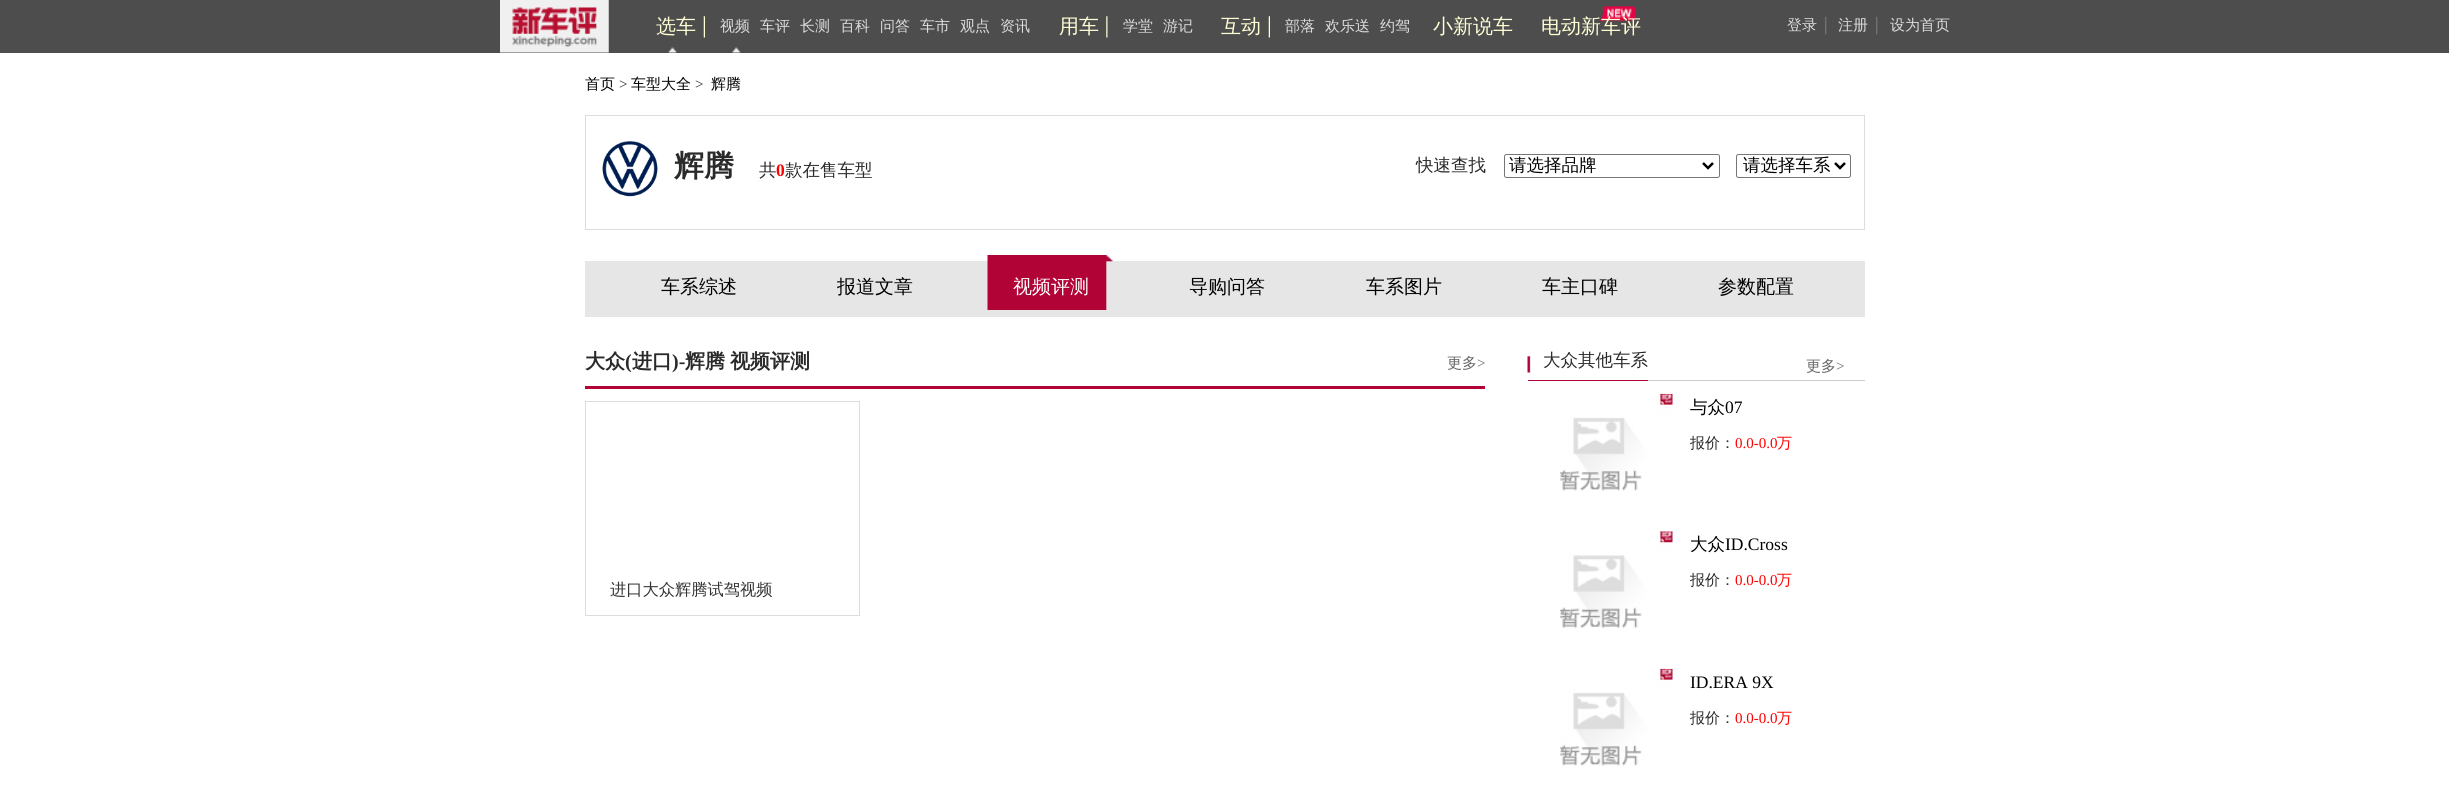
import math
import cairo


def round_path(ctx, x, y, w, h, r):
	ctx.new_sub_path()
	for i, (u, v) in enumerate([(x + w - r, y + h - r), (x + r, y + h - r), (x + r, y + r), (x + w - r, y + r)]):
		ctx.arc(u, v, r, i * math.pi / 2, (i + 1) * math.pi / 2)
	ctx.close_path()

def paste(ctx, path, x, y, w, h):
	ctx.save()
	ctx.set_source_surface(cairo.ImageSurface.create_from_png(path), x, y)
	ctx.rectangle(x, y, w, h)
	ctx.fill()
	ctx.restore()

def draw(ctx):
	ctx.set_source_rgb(1, 1, 1)
	ctx.paint()
	ctx.set_source_rgb(0.302, 0.302, 0.302)
	ctx.rectangle(0, 0, 2449, 53)
	ctx.fill()
	paste(ctx, 'media/1.png', 500, 0, 109, 53)
	paste(ctx, 'media/2.png', 703, 16, 2, 22)
	paste(ctx, 'media/3.png', 668, 47, 9, 6)
	ctx.select_font_face('WenQuanYi Zen Hei Medium')
	ctx.set_font_size(20)
	ctx.set_source_rgb(1, 0.996, 0.831)
	ctx.move_to(656, 33)
	ctx.show_text('选车')
	paste(ctx, 'media/4.png', 732, 47, 9, 6)
	ctx.set_font_size(15)
	ctx.set_source_rgb(0.867, 0.867, 0.867)
	for x, y, s in [
		(720, 31, '视频'),
		(760, 31, '车评'),
		(800, 31, '长测'),
		(840, 31, '百科'),
		(880, 31, '问答'),
		(920, 31, '车市'),
		(960, 31, '观点'),
		(1000, 31, '资讯'),
	]:
		ctx.move_to(x, y)
		ctx.show_text(s)
	paste(ctx, 'media/5.png', 1106, 16, 2, 22)
	ctx.set_font_size(20)
	ctx.set_source_rgb(1, 0.996, 0.831)
	ctx.move_to(1059, 33)
	ctx.show_text('用车')
	ctx.set_font_size(15)
	ctx.set_source_rgb(0.867, 0.867, 0.867)
	ctx.move_to(1123, 31)
	ctx.show_text('学堂')
	ctx.move_to(1163, 31)
	ctx.show_text('游记')
	paste(ctx, 'media/2.png', 1268, 16, 2, 22)
	ctx.set_font_size(20)
	ctx.set_source_rgb(1, 0.996, 0.831)
	ctx.move_to(1221, 33)
	ctx.show_text('互动')
	ctx.set_font_size(15)
	ctx.set_source_rgb(0.867, 0.867, 0.867)
	for x, y, s in [
		(1285, 31, '部落'),
		(1325, 31, '欢乐送'),
		(1380, 31, '约驾'),
	]:
		ctx.move_to(x, y)
		ctx.show_text(s)
	ctx.set_font_size(20)
	ctx.set_source_rgb(1, 0.996, 0.831)
	ctx.move_to(1433, 33)
	ctx.show_text('小新说车')
	paste(ctx, 'media/6.png', 1600, 6, 36, 16)
	ctx.move_to(1541, 33)
	ctx.show_text('电动新车评')
	ctx.set_font_size(15)
	ctx.set_source_rgb(0.867, 0.867, 0.867)
	ctx.move_to(1787, 30)
	ctx.show_text('登录')
	ctx.set_font_size(17.5)
	ctx.set_source_rgb(0.49, 0.49, 0.49)
	ctx.move_to(1817, 30)
	ctx.show_text('｜')
	ctx.set_font_size(15)
	ctx.set_source_rgb(0.867, 0.867, 0.867)
	ctx.move_to(1838, 30)
	ctx.show_text('注册')
	ctx.set_font_size(17.5)
	ctx.set_source_rgb(0.49, 0.49, 0.49)
	ctx.move_to(1868, 30)
	ctx.show_text('｜')
	ctx.set_font_size(15)
	ctx.set_source_rgb(0.867, 0.867, 0.867)
	ctx.move_to(1890, 30)
	ctx.show_text('设为首页')
	ctx.set_source_rgb(0, 0, 0)
	ctx.move_to(585, 89)
	ctx.show_text('首页')
	ctx.select_font_face('Liberation Serif')
	ctx.set_source_rgb(0.165, 0.165, 0.165)
	ctx.move_to(619, 89)
	ctx.show_text('>')
	ctx.select_font_face('WenQuanYi Zen Hei Medium')
	ctx.set_source_rgb(0, 0, 0)
	ctx.move_to(631, 89)
	ctx.show_text('车型大全')
	ctx.select_font_face('Liberation Serif')
	ctx.set_source_rgb(0.165, 0.165, 0.165)
	ctx.move_to(695, 89)
	ctx.show_text('>')
	ctx.select_font_face('WenQuanYi Zen Hei Medium')
	ctx.set_source_rgb(0, 0, 0)
	ctx.move_to(711, 89)
	ctx.show_text('辉腾')
	ctx.rectangle(585.5, 115.5, 1279, 114)
	ctx.set_source_rgb(0.867, 0.867, 0.867)
	ctx.set_line_width(1)
	ctx.stroke()
	paste(ctx, 'media/7.png', 602, 141, 56, 56)
	ctx.select_font_face('WenQuanYi Zen Hei', cairo.FONT_SLANT_NORMAL, cairo.FONT_WEIGHT_BOLD)
	ctx.set_font_size(30)
	ctx.set_source_rgb(0.165, 0.165, 0.165)
	ctx.move_to(674, 176)
	ctx.show_text('辉腾')
	ctx.select_font_face('WenQuanYi Zen Hei Medium')
	ctx.set_font_size(17.5)
	ctx.move_to(759, 176)
	ctx.show_text('共')
	ctx.select_font_face('Liberation Serif', cairo.FONT_SLANT_NORMAL, cairo.FONT_WEIGHT_BOLD)
	ctx.set_source_rgb(1, 0, 0)
	ctx.move_to(776, 176)
	ctx.show_text('0')
	ctx.select_font_face('WenQuanYi Zen Hei Medium')
	ctx.set_source_rgb(0.165, 0.165, 0.165)
	ctx.move_to(785, 176)
	ctx.show_text('款在售车型')
	ctx.move_to(1416, 171)
	ctx.show_text('快速查找')
	round_path(ctx, 1504.5, 154.5, 215, 23, 2)
	ctx.set_source_rgb(0.463, 0.463, 0.463)
	ctx.stroke()
	ctx.new_path()
	ctx.move_to(1703, 163)
	ctx.line_to(1708, 168)
	ctx.line_to(1713, 163)
	ctx.set_source_rgb(0, 0, 0)
	ctx.set_line_width(2.5)
	ctx.stroke()
	ctx.move_to(1509, 171)
	ctx.show_text('请选择品牌')
	round_path(ctx, 1736.5, 154.5, 114, 23, 2)
	ctx.set_source_rgb(0.463, 0.463, 0.463)
	ctx.set_line_width(1)
	ctx.stroke()
	ctx.new_path()
	ctx.move_to(1835, 163)
	ctx.line_to(1840, 168)
	ctx.line_to(1845, 163)
	ctx.set_source_rgb(0, 0, 0)
	ctx.set_line_width(2.5)
	ctx.stroke()
	ctx.move_to(1743, 171)
	ctx.show_text('请选择车系')
	ctx.set_source_rgb(0.902, 0.902, 0.906)
	ctx.rectangle(585, 261, 1280, 56)
	ctx.fill()
	ctx.set_font_size(19)
	ctx.set_source_rgb(0, 0, 0)
	ctx.move_to(661, 293)
	ctx.show_text('车系综述')
	ctx.move_to(837, 293)
	ctx.show_text('报道文章')
	paste(ctx, 'media/8.png', 987, 255, 127, 55)
	ctx.set_source_rgb(1, 1, 1)
	ctx.move_to(1013, 293)
	ctx.show_text('视频评测')
	ctx.set_source_rgb(0, 0, 0)
	for x, y, s in [
		(1189, 293, '导购问答'),
		(1366, 293, '车系图片'),
		(1542, 293, '车主口碑'),
		(1718, 293, '参数配置'),
	]:
		ctx.move_to(x, y)
		ctx.show_text(s)
	ctx.set_source_rgb(0.694, 0.012, 0.212)
	ctx.rectangle(585, 386, 900, 3)
	ctx.fill()
	ctx.select_font_face('WenQuanYi Zen Hei', cairo.FONT_SLANT_NORMAL, cairo.FONT_WEIGHT_BOLD)
	ctx.set_font_size(20)
	ctx.set_source_rgb(0.165, 0.165, 0.165)
	ctx.move_to(585, 368)
	ctx.show_text('大众')
	ctx.select_font_face('Liberation Serif', cairo.FONT_SLANT_NORMAL, cairo.FONT_WEIGHT_BOLD)
	ctx.move_to(625, 368)
	ctx.show_text('(')
	ctx.select_font_face('WenQuanYi Zen Hei', cairo.FONT_SLANT_NORMAL, cairo.FONT_WEIGHT_BOLD)
	ctx.move_to(632, 368)
	ctx.show_text('进口')
	ctx.select_font_face('Liberation Serif', cairo.FONT_SLANT_NORMAL, cairo.FONT_WEIGHT_BOLD)
	ctx.move_to(672, 368)
	ctx.show_text(')-')
	ctx.select_font_face('WenQuanYi Zen Hei', cairo.FONT_SLANT_NORMAL, cairo.FONT_WEIGHT_BOLD)
	ctx.move_to(685, 368)
	ctx.show_text('辉腾')
	ctx.move_to(730, 368)
	ctx.show_text('视频评测')
	ctx.select_font_face('WenQuanYi Zen Hei Medium')
	ctx.set_font_size(15)
	ctx.set_source_rgb(0.4, 0.4, 0.4)
	ctx.move_to(1447, 368)
	ctx.show_text('更多')
	ctx.select_font_face('Liberation Serif')
	ctx.move_to(1477, 368)
	ctx.show_text('>')
	ctx.rectangle(585.5, 401.5, 274, 214)
	ctx.set_source_rgb(0.867, 0.867, 0.867)
	ctx.set_line_width(1)
	ctx.stroke()
	ctx.select_font_face('WenQuanYi Zen Hei Medium')
	ctx.set_font_size(16.25)
	ctx.set_source_rgb(0.2, 0.2, 0.2)
	ctx.move_to(610, 595)
	ctx.show_text('进口大众辉腾试驾视频')
	ctx.set_source_rgb(0.8, 0.8, 0.8)
	ctx.rectangle(1648, 380, 217, 1)
	ctx.fill()
	paste(ctx, 'media/9.png', 1527, 356, 4, 17)
	ctx.set_source_rgb(0.694, 0.012, 0.212)
	ctx.rectangle(1528, 380, 120, 1)
	ctx.fill()
	ctx.set_font_size(17.5)
	ctx.set_source_rgb(0.165, 0.165, 0.165)
	ctx.move_to(1543, 366)
	ctx.show_text('大众其他车系')
	ctx.set_font_size(15)
	ctx.set_source_rgb(0.4, 0.4, 0.4)
	ctx.move_to(1806, 371)
	ctx.show_text('更多')
	ctx.select_font_face('Liberation Serif')
	ctx.move_to(1836, 371)
	ctx.show_text('>')
	paste(ctx, 'media/10.png', 1560, 393, 113, 98)
	ctx.select_font_face('WenQuanYi Zen Hei Medium')
	ctx.set_font_size(17.5)
	ctx.set_source_rgb(0, 0, 0)
	ctx.move_to(1690, 413)
	ctx.show_text('与众')
	ctx.select_font_face('Liberation Serif')
	ctx.move_to(1725, 413)
	ctx.show_text('07')
	ctx.select_font_face('WenQuanYi Zen Hei Medium')
	ctx.set_font_size(15)
	ctx.set_source_rgb(0.165, 0.165, 0.165)
	ctx.move_to(1690, 448)
	ctx.show_text('报价：')
	ctx.select_font_face('Liberation Serif')
	ctx.set_source_rgb(1, 0, 0)
	ctx.move_to(1735, 448)
	ctx.show_text('0.0-0.0')
	ctx.select_font_face('WenQuanYi Zen Hei Medium')
	ctx.move_to(1777, 448)
	ctx.show_text('万')
	paste(ctx, 'media/11.png', 1560, 531, 113, 98)
	ctx.set_font_size(17.5)
	ctx.set_source_rgb(0, 0, 0)
	ctx.move_to(1690, 550)
	ctx.show_text('大众')
	ctx.select_font_face('Liberation Serif')
	ctx.move_to(1725, 550)
	ctx.show_text('ID.Cross')
	ctx.select_font_face('WenQuanYi Zen Hei Medium')
	ctx.set_font_size(15)
	ctx.set_source_rgb(0.165, 0.165, 0.165)
	ctx.move_to(1690, 585)
	ctx.show_text('报价：')
	ctx.select_font_face('Liberation Serif')
	ctx.set_source_rgb(1, 0, 0)
	ctx.move_to(1735, 585)
	ctx.show_text('0.0-0.0')
	ctx.select_font_face('WenQuanYi Zen Hei Medium')
	ctx.move_to(1777, 585)
	ctx.show_text('万')
	paste(ctx, 'media/12.png', 1560, 668, 113, 98)
	ctx.select_font_face('Liberation Serif')
	ctx.set_font_size(17.5)
	ctx.set_source_rgb(0, 0, 0)
	ctx.move_to(1690, 688)
	ctx.show_text('ID.ERA 9X')
	ctx.select_font_face('WenQuanYi Zen Hei Medium')
	ctx.set_font_size(15)
	ctx.set_source_rgb(0.165, 0.165, 0.165)
	ctx.move_to(1690, 723)
	ctx.show_text('报价：')
	ctx.select_font_face('Liberation Serif')
	ctx.set_source_rgb(1, 0, 0)
	ctx.move_to(1735, 723)
	ctx.show_text('0.0-0.0')
	ctx.select_font_face('WenQuanYi Zen Hei Medium')
	ctx.move_to(1777, 723)
	ctx.show_text('万')


surface = cairo.ImageSurface(cairo.FORMAT_RGB24, 2449, 803)
ctx = cairo.Context(surface)
options = cairo.FontOptions()
options.set_hint_metrics(cairo.HINT_METRICS_OFF)
options.set_hint_style(cairo.HINT_STYLE_NONE)
ctx.set_font_options(options)
ctx.set_miter_limit(4)
draw(ctx)
surface.write_to_png('image.png')
